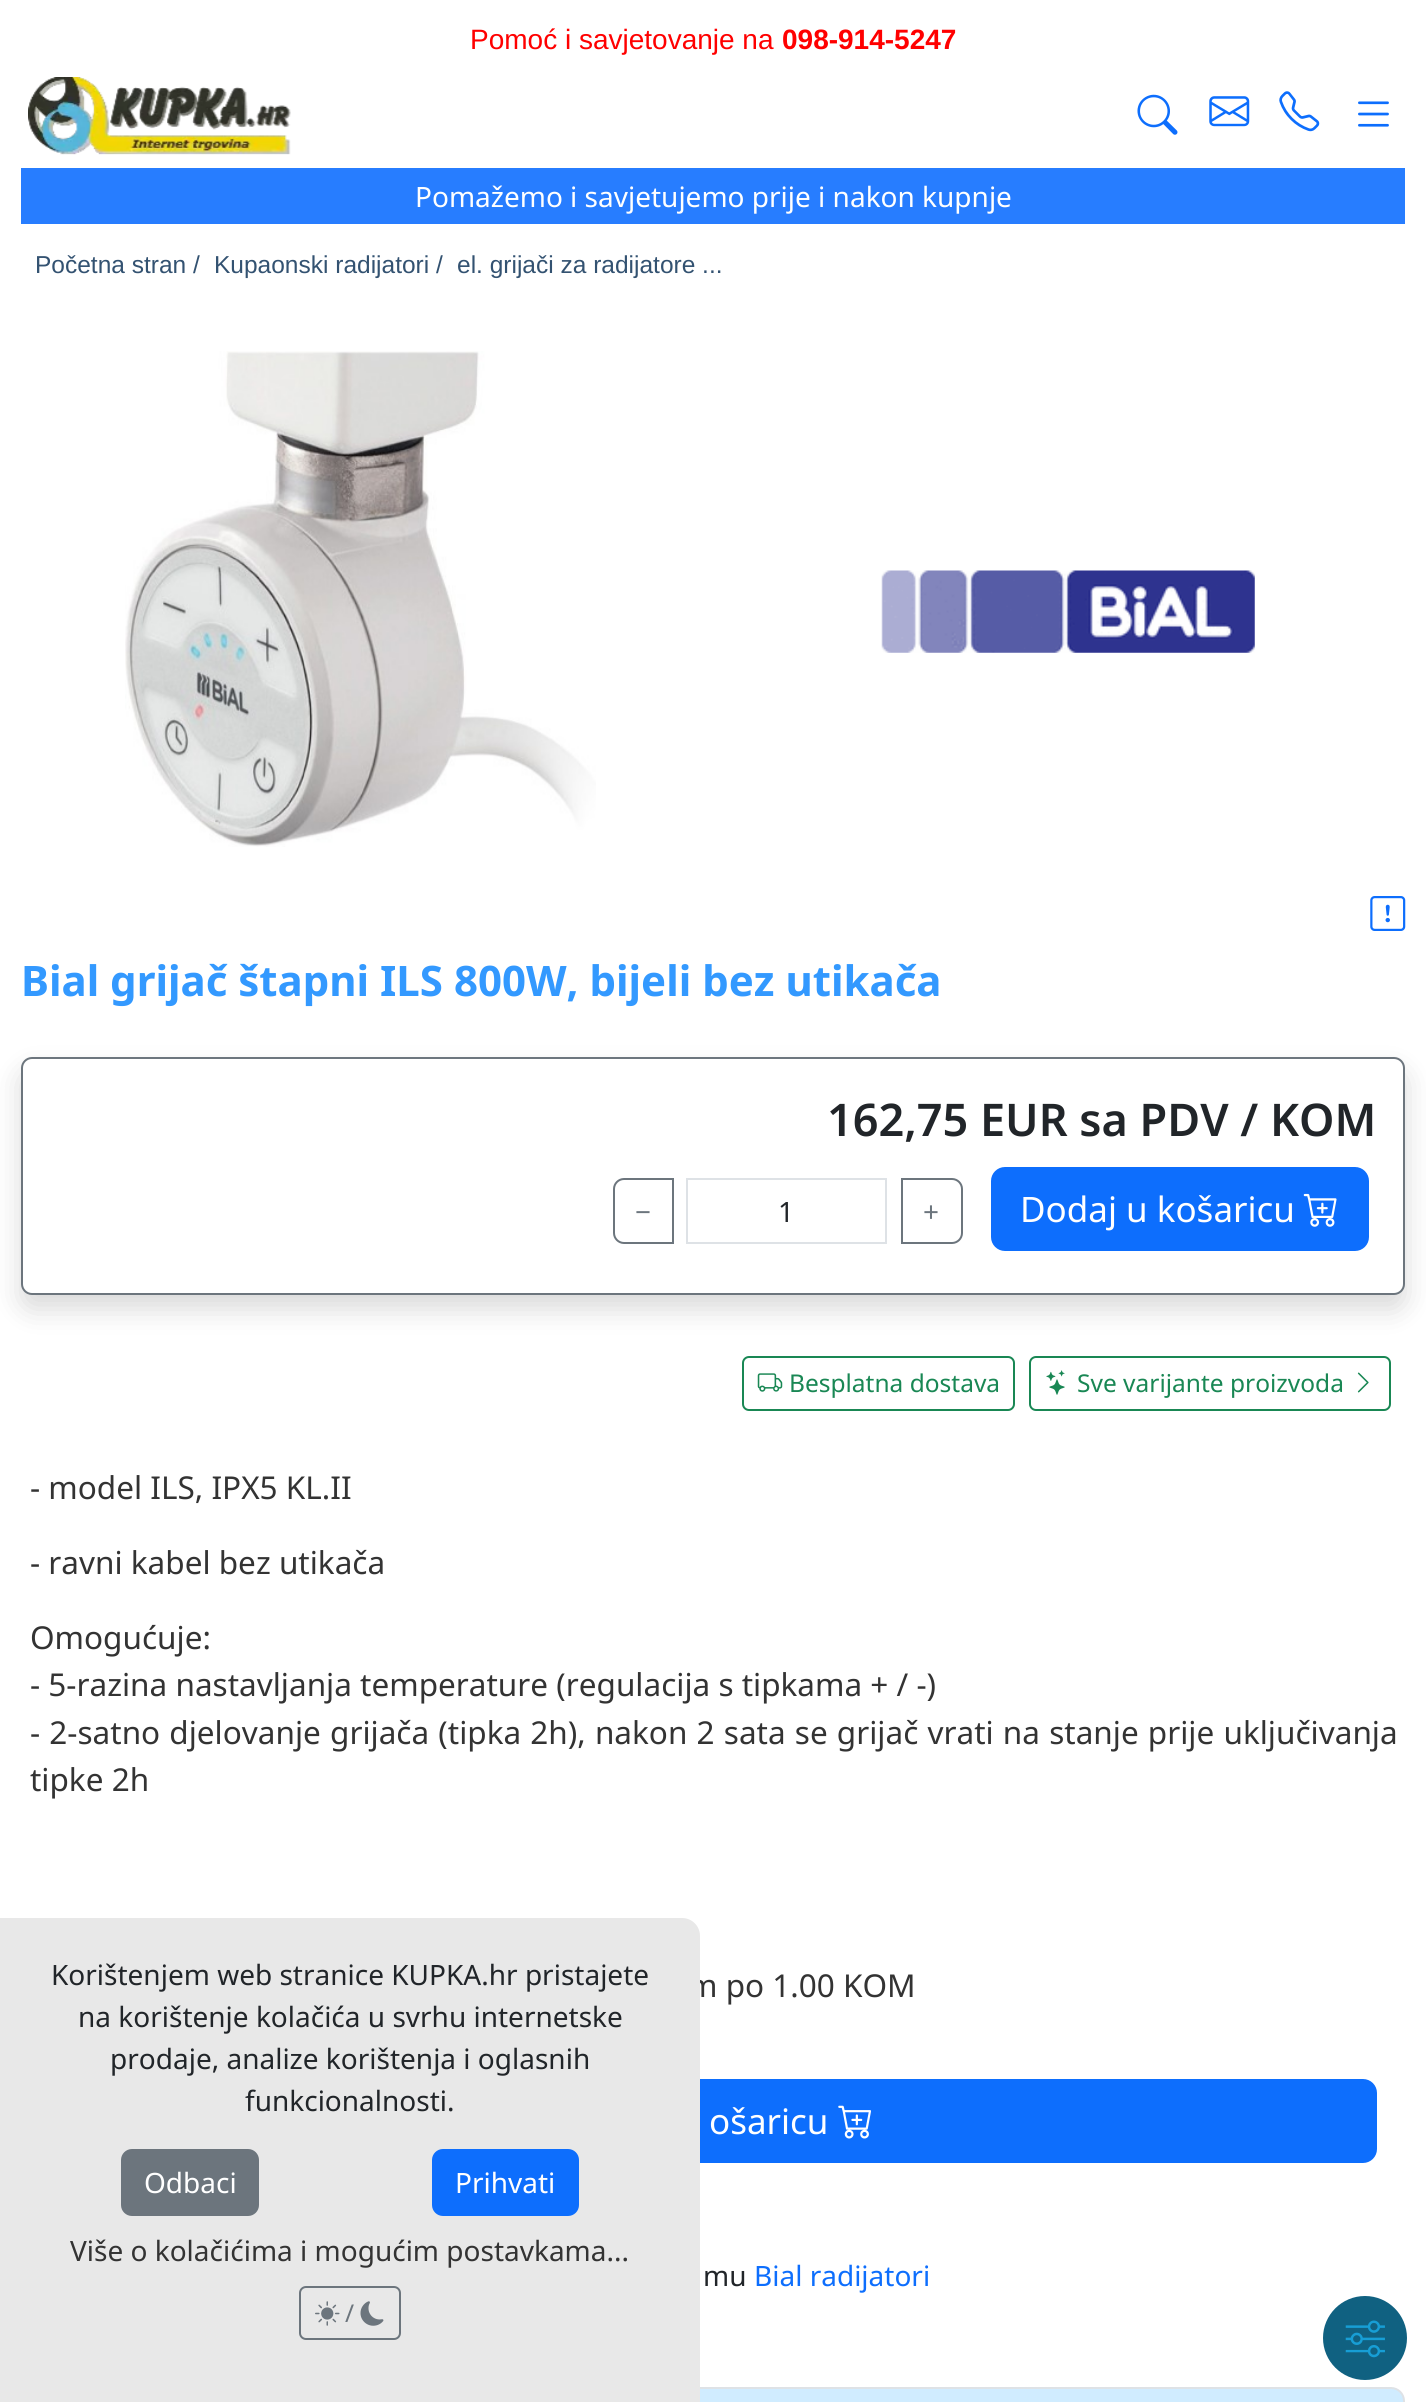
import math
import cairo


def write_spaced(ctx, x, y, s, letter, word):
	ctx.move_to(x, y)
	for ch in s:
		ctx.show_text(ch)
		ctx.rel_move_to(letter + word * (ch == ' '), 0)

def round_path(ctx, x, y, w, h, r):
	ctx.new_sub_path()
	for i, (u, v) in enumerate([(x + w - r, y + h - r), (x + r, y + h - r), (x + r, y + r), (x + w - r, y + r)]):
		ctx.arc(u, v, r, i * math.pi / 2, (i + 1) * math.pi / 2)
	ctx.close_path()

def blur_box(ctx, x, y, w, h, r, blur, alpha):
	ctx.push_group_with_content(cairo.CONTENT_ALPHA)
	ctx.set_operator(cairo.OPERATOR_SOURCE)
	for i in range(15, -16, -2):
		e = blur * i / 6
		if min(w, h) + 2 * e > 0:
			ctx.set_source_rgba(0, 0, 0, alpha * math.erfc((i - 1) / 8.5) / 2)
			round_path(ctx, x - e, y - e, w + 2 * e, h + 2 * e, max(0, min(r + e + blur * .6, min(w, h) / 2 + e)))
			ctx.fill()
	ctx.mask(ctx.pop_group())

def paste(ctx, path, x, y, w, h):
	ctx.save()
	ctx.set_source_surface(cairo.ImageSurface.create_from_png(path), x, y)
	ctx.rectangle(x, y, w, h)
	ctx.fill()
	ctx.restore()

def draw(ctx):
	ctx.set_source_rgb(1, 1, 1)
	ctx.paint()
	ctx.select_font_face('Liberation Sans')
	ctx.set_font_size(28)
	ctx.set_source_rgb(1, 0, 0)
	ctx.move_to(470, 49)
	ctx.show_text('Pomoć i savjetovanje na')
	ctx.select_font_face('Liberation Sans', cairo.FONT_SLANT_NORMAL, cairo.FONT_WEIGHT_BOLD)
	ctx.move_to(782, 49)
	ctx.show_text('098-914-5247')
	paste(ctx, 'media/1.png', 28, 77, 263, 78)
	paste(ctx, 'media/2.png', 1137, 94, 41, 41)
	paste(ctx, 'media/3.png', 1209, 96, 41, 31)
	paste(ctx, 'media/4.png', 1279, 91, 41, 41)
	paste(ctx, 'media/5.png', 1358, 101, 31, 26)
	ctx.set_source_rgb(0.153, 0.49, 1)
	ctx.rectangle(21, 168, 1384, 56)
	ctx.fill()
	ctx.select_font_face('Noto Sans')
	ctx.set_source_rgb(1, 1, 1)
	ctx.move_to(415, 207)
	ctx.show_text('Pomažemo i savjetujemo prije i nakon kupnje')
	ctx.select_font_face('Liberation Sans')
	ctx.set_font_size(24.5)
	ctx.set_source_rgb(0.2, 0.322, 0.443)
	for x, y, s in [
		(35, 273, 'Početna stran /'),
		(214, 273, 'Kupaonski radijatori /'),
		(457, 273, 'el. grijači za radijatore ...'),
	]:
		ctx.move_to(x, y)
		ctx.show_text(s)
	paste(ctx, 'media/6.png', 125, 351, 471, 496)
	paste(ctx, 'media/7.png', 881, 570, 374, 83)
	paste(ctx, 'media/8.png', 1370, 896, 36, 35)
	ctx.select_font_face('Noto Sans', cairo.FONT_SLANT_NORMAL, cairo.FONT_WEIGHT_BOLD)
	ctx.set_font_size(42)
	ctx.set_source_rgb(0.2, 0.6, 1)
	ctx.move_to(21, 996)
	ctx.show_text('Bial grijač štapni ILS 800W, bijeli bez utikača')
	ctx.set_source_rgb(0, 0, 0)
	blur_box(ctx, 21, 1071, 1384, 238, 11, 14, 0.15)
	ctx.set_source_rgb(1, 1, 1)
	round_path(ctx, 22, 1058, 1382, 236, 10)
	ctx.fill_preserve()
	ctx.set_source_rgb(0.424, 0.459, 0.49)
	ctx.stroke()
	ctx.select_font_face('Noto Sans SemiBold')
	ctx.set_font_size(45)
	ctx.set_source_rgb(0.129, 0.145, 0.161)
	ctx.move_to(827, 1136)
	ctx.show_text('162,75 EUR sa PDV / KOM')
	ctx.new_path()
	ctx.move_to(624, 1179)
	ctx.line_to(673, 1179)
	ctx.line_to(673, 1243)
	ctx.line_to(624, 1243)
	ctx.curve_to(618.5, 1243, 614, 1238.5, 614, 1233)
	ctx.line_to(614, 1189)
	ctx.curve_to(614, 1183.5, 618.5, 1179, 624, 1179)
	ctx.close_path()
	ctx.set_source_rgb(0.424, 0.459, 0.49)
	ctx.stroke()
	ctx.select_font_face('Noto Sans')
	ctx.set_font_size(28)
	ctx.move_to(635, 1222)
	ctx.show_text('−')
	ctx.rectangle(687, 1179, 199, 64)
	ctx.set_source_rgb(0.871, 0.886, 0.902)
	ctx.stroke()
	ctx.set_source_rgb(0.129, 0.145, 0.161)
	ctx.move_to(778, 1222)
	ctx.show_text('1')
	ctx.new_path()
	ctx.move_to(902, 1179)
	ctx.line_to(952, 1179)
	ctx.curve_to(957.5, 1179, 962, 1183.5, 962, 1189)
	ctx.line_to(962, 1233)
	ctx.curve_to(962, 1238.5, 957.5, 1243, 952, 1243)
	ctx.line_to(902, 1243)
	ctx.close_path()
	ctx.set_source_rgb(0.424, 0.459, 0.49)
	ctx.stroke()
	ctx.move_to(923, 1222)
	ctx.show_text('+')
	ctx.set_source_rgb(0.051, 0.431, 0.992)
	round_path(ctx, 992, 1168, 376, 82, 13)
	ctx.fill_preserve()
	ctx.stroke()
	ctx.set_font_size(35)
	ctx.set_source_rgb(1, 1, 1)
	ctx.move_to(1020, 1222)
	ctx.show_text('Dodaj u košaricu')
	paste(ctx, 'media/9.png', 1303, 1193, 34, 34)
	round_path(ctx, 743, 1357, 271, 53, 6)
	ctx.set_source_rgb(0.098, 0.529, 0.329)
	ctx.stroke()
	paste(ctx, 'media/10.png', 757, 1373, 26, 19)
	ctx.set_font_size(24.5)
	ctx.move_to(789, 1392)
	ctx.show_text('Besplatna dostava')
	round_path(ctx, 1030, 1357, 360, 53, 6)
	ctx.stroke()
	paste(ctx, 'media/11.png', 1046, 1370, 19, 25)
	ctx.move_to(1077, 1392)
	ctx.show_text('Sve varijante proizvoda')
	paste(ctx, 'media/12.png', 1357, 1372, 12, 21)
	ctx.set_font_size(31.5)
	ctx.set_source_rgb(0.2, 0.2, 0.2)
	for x, y, s in [
		(30, 1499, '- model ILS, IPX5 KL.II'),
		(30, 1574, '- ravni kabel bez utikača'),
		(30, 1649, 'Omogućuje:'),
		(30, 1696, '- 5-razina nastavljanja temperature (regulacija s tipkama + / -)'),
	]:
		ctx.move_to(x, y)
		ctx.show_text(s)
	write_spaced(ctx, 30, 1744, '- 2-satno djelovanje grijača (tipka 2h), nakon 2 sata se grijač vrati na stanje prije uključivanja', 0, 1)
	ctx.move_to(30, 1791)
	ctx.show_text('tipke 2h')
	ctx.move_to(688, 1997)
	ctx.show_text('m po 1.00 KOM')
	ctx.set_source_rgb(0.051, 0.431, 0.992)
	round_path(ctx, 50, 2080, 1326, 82, 13)
	ctx.fill_preserve()
	ctx.stroke()
	ctx.set_font_size(35)
	ctx.set_source_rgb(1, 1, 1)
	ctx.move_to(709, 2134)
	ctx.show_text('ošaricu')
	paste(ctx, 'media/13.png', 838, 2105, 33, 34)
	ctx.set_font_size(28)
	ctx.set_source_rgb(0.129, 0.145, 0.161)
	ctx.move_to(703, 2286)
	ctx.show_text('mu')
	ctx.set_source_rgb(0.051, 0.431, 0.992)
	ctx.move_to(754, 2286)
	ctx.show_text('Bial radijatori')
	ctx.set_source_rgb(0.816, 0.922, 1)
	round_path(ctx, 22, 2388, 1382, 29, 13)
	ctx.fill_preserve()
	ctx.set_source_rgb(0.871, 0.886, 0.902)
	ctx.stroke()
	ctx.set_source_rgb(0.91, 0.91, 0.91)
	ctx.new_path()
	ctx.move_to(0, 1918)
	ctx.line_to(682, 1918)
	ctx.curve_to(692, 1918, 700, 1926, 700, 1936)
	ctx.line_to(700, 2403)
	ctx.line_to(0, 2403)
	ctx.close_path()
	ctx.fill()
	ctx.set_source_rgb(0.129, 0.145, 0.161)
	for x, y, s in [
		(51, 1985, 'Korištenjem web stranice KUPKA.hr pristajete'),
		(78, 2027, 'na korištenje kolačića u svrhu internetske'),
		(110, 2069, 'prodaje, analize korištenja i oglasnih'),
		(245, 2111, 'funkcionalnosti.'),
	]:
		ctx.move_to(x, y)
		ctx.show_text(s)
	ctx.set_source_rgb(0.424, 0.459, 0.49)
	round_path(ctx, 122, 2150, 136, 65, 10)
	ctx.fill_preserve()
	ctx.stroke()
	ctx.set_source_rgb(1, 1, 1)
	ctx.move_to(144, 2193)
	ctx.show_text('Odbaci')
	ctx.set_source_rgb(0.051, 0.431, 0.992)
	round_path(ctx, 433, 2150, 145, 65, 10)
	ctx.fill_preserve()
	ctx.stroke()
	ctx.set_source_rgb(1, 1, 1)
	ctx.move_to(455, 2193)
	ctx.show_text('Prihvati')
	ctx.set_source_rgb(0.2, 0.2, 0.2)
	ctx.move_to(70, 2261)
	ctx.show_text('Više o kolačićima i mogućim postavkama...')
	round_path(ctx, 300, 2287, 100, 52, 6)
	ctx.set_source_rgb(0.424, 0.459, 0.49)
	ctx.stroke()
	paste(ctx, 'media/14.png', 315, 2301, 25, 25)
	ctx.set_font_size(24.5)
	ctx.move_to(345, 2322)
	ctx.show_text('/')
	paste(ctx, 'media/15.png', 360, 2301, 24, 25)
	ctx.set_source_rgb(0.063, 0.38, 0.506)
	ctx.arc(1365, 2338, 42, 0, 2 * math.pi)
	ctx.fill()
	paste(ctx, 'media/16.png', 1345, 2320, 40, 38)


surface = cairo.ImageSurface(cairo.FORMAT_RGB24, 1426, 2402)
ctx = cairo.Context(surface)
options = cairo.FontOptions()
options.set_hint_metrics(cairo.HINT_METRICS_OFF)
options.set_hint_style(cairo.HINT_STYLE_NONE)
ctx.set_font_options(options)
ctx.set_miter_limit(4)
draw(ctx)
surface.write_to_png('image.png')
